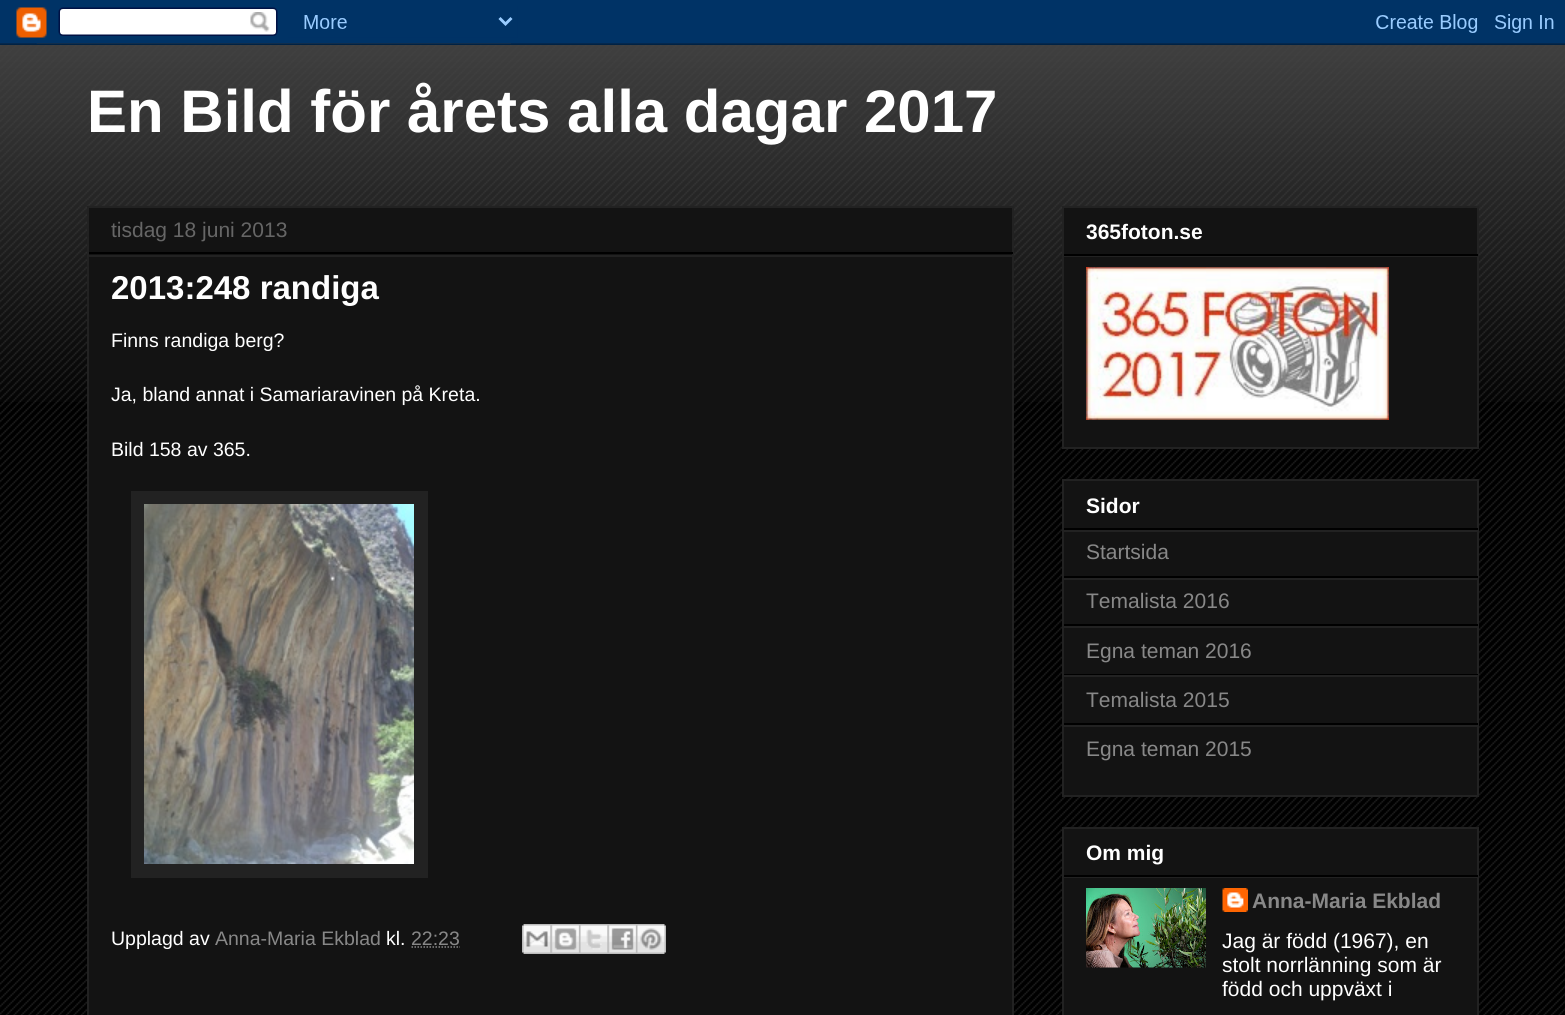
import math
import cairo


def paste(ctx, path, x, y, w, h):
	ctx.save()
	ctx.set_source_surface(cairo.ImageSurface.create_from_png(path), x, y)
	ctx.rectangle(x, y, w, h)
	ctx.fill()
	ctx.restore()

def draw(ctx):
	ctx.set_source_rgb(0, 0, 0)
	ctx.paint()
	paste(ctx, 'media/1.png', 0, 43, 1565, 972)
	paste(ctx, 'media/3.png', 0, 43, 1565, 359)
	paste(ctx, 'media/2.png', 0, 0, 1565, 45)
	ctx.select_font_face('Liberation Sans', cairo.FONT_SLANT_NORMAL, cairo.FONT_WEIGHT_BOLD)
	ctx.set_font_size(60)
	ctx.set_source_rgb(1, 1, 1)
	ctx.move_to(87, 132)
	ctx.show_text('En Bild för årets alla dagar 2017')
	ctx.set_source_rgb(0.078, 0.078, 0.078)
	ctx.rectangle(88, 207, 925, 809)
	ctx.fill_preserve()
	ctx.set_source_rgb(0.133, 0.133, 0.133)
	ctx.stroke()
	ctx.set_source_rgb(0, 0, 0)
	ctx.rectangle(89, 252, 924, 2)
	ctx.fill()
	ctx.select_font_face('Liberation Sans')
	ctx.set_font_size(21)
	ctx.set_source_rgb(0.4, 0.4, 0.4)
	ctx.move_to(111, 237)
	ctx.show_text('tisdag 18 juni 2013')
	ctx.set_source_rgb(0.133, 0.133, 0.133)
	ctx.rectangle(89, 255, 924, 2)
	ctx.fill()
	ctx.select_font_face('Liberation Sans', cairo.FONT_SLANT_NORMAL, cairo.FONT_WEIGHT_BOLD)
	ctx.set_font_size(33)
	ctx.set_source_rgb(1, 1, 1)
	ctx.move_to(111, 299)
	ctx.show_text('2013:248 randiga')
	ctx.select_font_face('Liberation Sans')
	ctx.set_font_size(19.5)
	for x, y, s in [
		(111, 347, 'Finns randiga berg?'),
		(111, 401, 'Ja, bland annat i Samariaravinen på Kreta.'),
		(111, 456, 'Bild 158 av 365.'),
	]:
		ctx.move_to(x, y)
		ctx.show_text(s)
	ctx.set_source_rgb(0.133, 0.133, 0.133)
	ctx.rectangle(131, 491, 297, 387)
	ctx.fill()
	paste(ctx, 'media/4.png', 144, 504, 270, 360)
	ctx.set_source_rgb(1, 1, 1)
	ctx.move_to(111, 945)
	ctx.show_text('Upplagd av')
	ctx.set_source_rgb(0.533, 0.533, 0.533)
	ctx.move_to(215, 945)
	ctx.show_text('Anna-Maria Ekblad')
	ctx.set_source_rgb(1, 1, 1)
	ctx.move_to(386, 945)
	ctx.show_text('kl.')
	ctx.set_source_rgb(0.533, 0.533, 0.533)
	ctx.move_to(411, 945)
	ctx.show_text('22:23')
	ctx.new_path()
	ctx.move_to(411.5, 947)
	ctx.line_to(460, 947)
	ctx.set_line_width(1.5)
	ctx.set_dash([1.5, 1.5])
	ctx.stroke()
	paste(ctx, 'media/5.png', 522, 924, 29, 30)
	paste(ctx, 'media/6.png', 550, 924, 29, 30)
	paste(ctx, 'media/7.png', 579, 924, 29, 30)
	paste(ctx, 'media/8.png', 607, 924, 29, 30)
	paste(ctx, 'media/9.png', 636, 924, 30, 30)
	ctx.set_source_rgb(0.078, 0.078, 0.078)
	ctx.rectangle(1063, 207, 415, 241)
	ctx.fill_preserve()
	ctx.set_source_rgb(0.133, 0.133, 0.133)
	ctx.set_line_width(2)
	ctx.set_dash([])
	ctx.stroke()
	ctx.set_source_rgb(0, 0, 0)
	ctx.rectangle(1064, 254, 414, 2)
	ctx.fill()
	ctx.select_font_face('Liberation Sans', cairo.FONT_SLANT_NORMAL, cairo.FONT_WEIGHT_BOLD)
	ctx.set_font_size(21)
	ctx.set_source_rgb(1, 1, 1)
	ctx.move_to(1086, 239)
	ctx.show_text('365foton.se')
	ctx.set_source_rgb(0.133, 0.133, 0.133)
	ctx.rectangle(1064, 256, 414, 1)
	ctx.fill()
	paste(ctx, 'media/10.png', 1086, 267, 303, 153)
	ctx.set_source_rgb(0.078, 0.078, 0.078)
	ctx.rectangle(1063, 480, 415, 316)
	ctx.fill_preserve()
	ctx.set_source_rgb(0.133, 0.133, 0.133)
	ctx.stroke()
	ctx.set_source_rgb(0, 0, 0)
	ctx.rectangle(1064, 528, 414, 2)
	ctx.fill()
	ctx.set_source_rgb(1, 1, 1)
	ctx.move_to(1086, 513)
	ctx.show_text('Sidor')
	ctx.set_source_rgb(0.133, 0.133, 0.133)
	ctx.rectangle(1064, 530, 414, 2)
	ctx.fill()
	ctx.set_source_rgb(0, 0, 0)
	ctx.rectangle(1064, 576, 414, 2)
	ctx.fill()
	ctx.select_font_face('Liberation Sans')
	ctx.set_source_rgb(0.533, 0.533, 0.533)
	ctx.move_to(1086, 559)
	ctx.show_text('Startsida')
	ctx.set_source_rgb(0.133, 0.133, 0.133)
	ctx.rectangle(1064, 578, 414, 2)
	ctx.fill()
	ctx.set_source_rgb(0, 0, 0)
	ctx.rectangle(1064, 624, 414, 2)
	ctx.fill()
	ctx.set_source_rgb(0.533, 0.533, 0.533)
	ctx.move_to(1086, 608)
	ctx.show_text('Temalista 2016')
	ctx.set_source_rgb(0.133, 0.133, 0.133)
	ctx.rectangle(1064, 626, 414, 2)
	ctx.fill()
	ctx.set_source_rgb(0, 0, 0)
	ctx.rectangle(1064, 674, 414, 1)
	ctx.fill()
	ctx.set_source_rgb(0.533, 0.533, 0.533)
	ctx.move_to(1086, 658)
	ctx.show_text('Egna teman 2016')
	ctx.set_source_rgb(0.133, 0.133, 0.133)
	ctx.rectangle(1064, 675, 414, 2)
	ctx.fill()
	ctx.set_source_rgb(0, 0, 0)
	ctx.rectangle(1064, 723, 414, 2)
	ctx.fill()
	ctx.set_source_rgb(0.533, 0.533, 0.533)
	ctx.move_to(1086, 707)
	ctx.show_text('Temalista 2015')
	ctx.set_source_rgb(0.133, 0.133, 0.133)
	ctx.rectangle(1064, 725, 414, 2)
	ctx.fill()
	ctx.set_source_rgb(0.533, 0.533, 0.533)
	ctx.move_to(1086, 756)
	ctx.show_text('Egna teman 2015')
	ctx.set_source_rgb(0.078, 0.078, 0.078)
	ctx.rectangle(1063, 828, 415, 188)
	ctx.fill_preserve()
	ctx.set_source_rgb(0.133, 0.133, 0.133)
	ctx.stroke()
	ctx.set_source_rgb(0, 0, 0)
	ctx.rectangle(1064, 875, 414, 2)
	ctx.fill()
	ctx.select_font_face('Liberation Sans', cairo.FONT_SLANT_NORMAL, cairo.FONT_WEIGHT_BOLD)
	ctx.set_source_rgb(1, 1, 1)
	ctx.move_to(1086, 860)
	ctx.show_text('Om mig')
	ctx.set_source_rgb(0.133, 0.133, 0.133)
	ctx.rectangle(1064, 877, 414, 1)
	ctx.fill()
	paste(ctx, 'media/11.png', 1086, 888, 120, 80)
	paste(ctx, 'media/12.png', 1222, 888, 26, 24)
	ctx.set_source_rgb(0.533, 0.533, 0.533)
	ctx.move_to(1252, 908)
	ctx.show_text('Anna-Maria Ekblad')
	ctx.select_font_face('Liberation Sans')
	ctx.set_source_rgb(1, 1, 1)
	for x, y, s in [
		(1222, 948, 'Jag är född (1967), en'),
		(1222, 972, 'stolt norrlänning som är'),
		(1222, 996, 'född och uppväxt i'),
	]:
		ctx.move_to(x, y)
		ctx.show_text(s)


surface = cairo.ImageSurface(cairo.FORMAT_RGB24, 1565, 1015)
ctx = cairo.Context(surface)
options = cairo.FontOptions()
options.set_hint_metrics(cairo.HINT_METRICS_OFF)
options.set_hint_style(cairo.HINT_STYLE_NONE)
ctx.set_font_options(options)
ctx.set_miter_limit(4)
draw(ctx)
surface.write_to_png('image.png')
